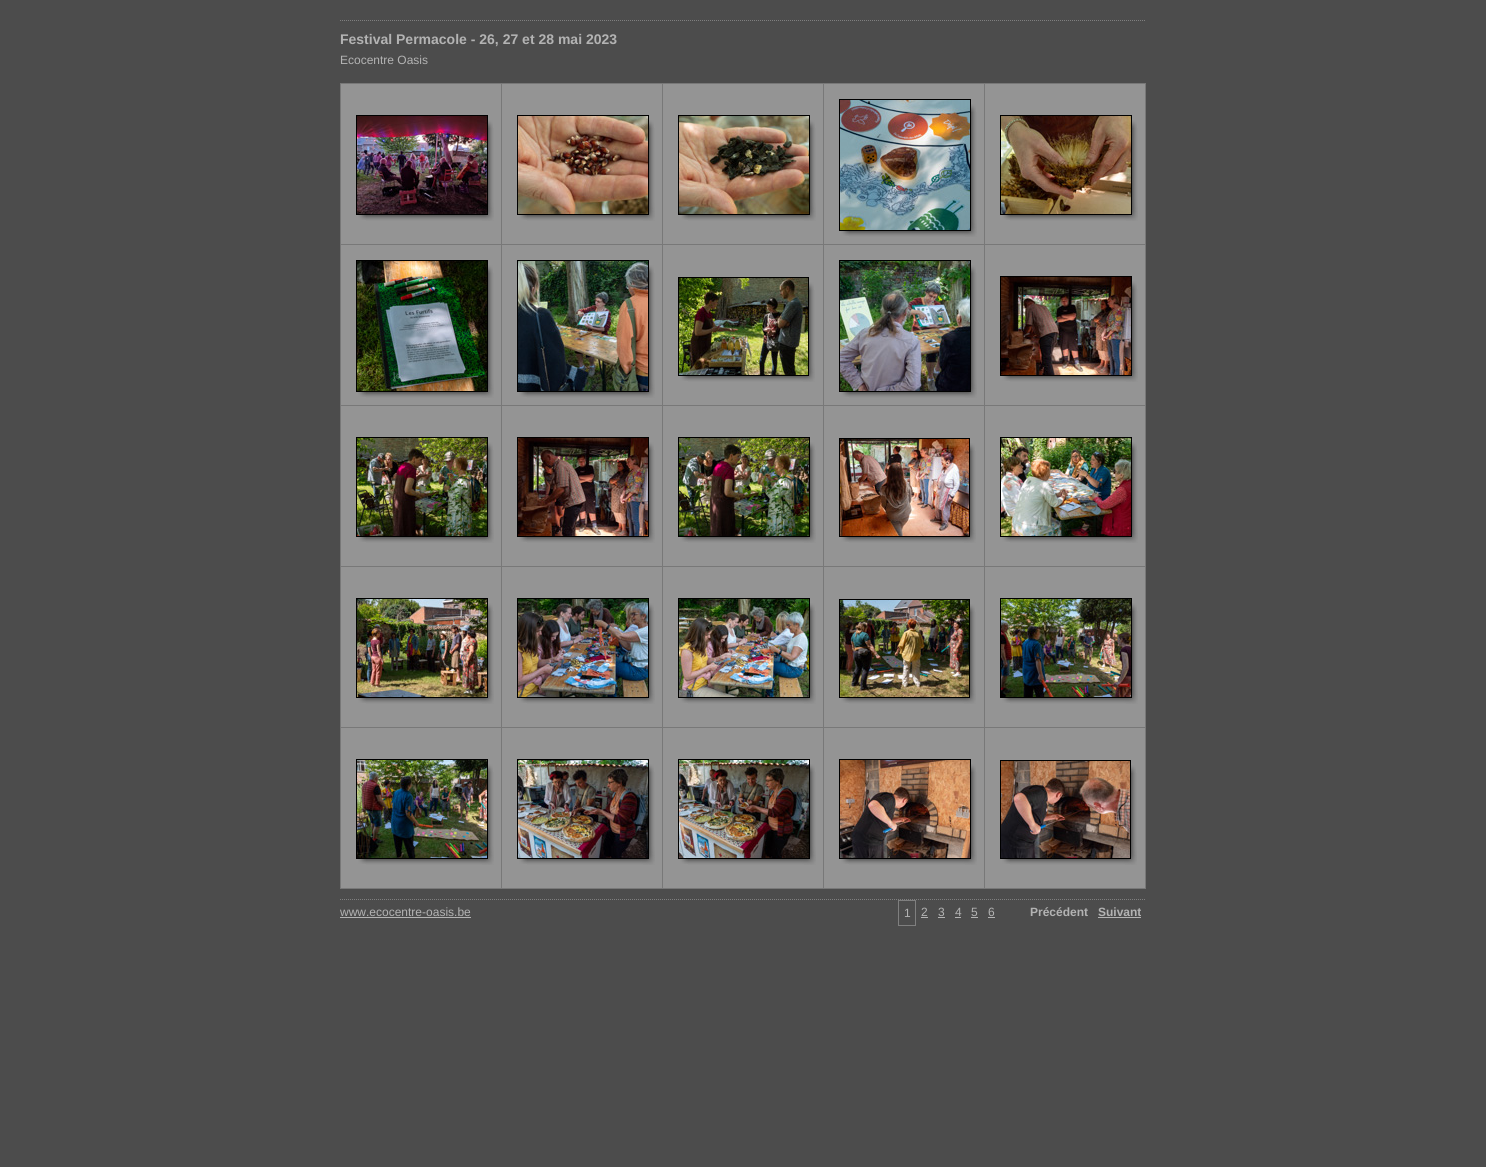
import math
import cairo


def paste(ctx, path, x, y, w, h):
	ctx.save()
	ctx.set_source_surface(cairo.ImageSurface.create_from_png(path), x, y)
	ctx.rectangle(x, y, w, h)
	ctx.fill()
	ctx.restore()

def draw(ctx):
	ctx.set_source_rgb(0.298, 0.298, 0.298)
	ctx.paint()
	ctx.new_path()
	ctx.move_to(340, 20.5)
	ctx.line_to(1146, 20.5)
	ctx.set_source_rgb(0.498, 0.498, 0.498)
	ctx.set_line_width(1)
	ctx.set_dash([1, 1])
	ctx.stroke()
	ctx.select_font_face('Liberation Sans', cairo.FONT_SLANT_NORMAL, cairo.FONT_WEIGHT_BOLD)
	ctx.set_font_size(14)
	ctx.set_source_rgb(0.702, 0.702, 0.702)
	ctx.move_to(340, 44)
	ctx.show_text('Festival Permacole - 26, 27 et 28 mai 2023')
	ctx.select_font_face('Liberation Sans')
	ctx.set_font_size(12)
	ctx.move_to(340, 64)
	ctx.show_text('Ecocentre Oasis')
	ctx.new_path()
	ctx.move_to(340, 899.5)
	ctx.line_to(1146, 899.5)
	ctx.set_source_rgb(0.498, 0.498, 0.498)
	ctx.stroke()
	ctx.set_source_rgb(0.58, 0.58, 0.58)
	ctx.rectangle(341, 84, 160, 160)
	ctx.fill()
	ctx.set_source_rgb(0.471, 0.471, 0.471)
	ctx.rectangle(340, 83, 806, 1)
	ctx.rectangle(340, 83, 1, 161)
	ctx.fill()
	paste(ctx, 'media/1.png', 366, 128, 128, 93)
	ctx.rectangle(356.5, 115.5, 131, 99)
	ctx.set_source_rgb(0, 0, 0)
	ctx.set_dash([])
	ctx.stroke()
	paste(ctx, 'media/2.png', 357, 116, 130, 98)
	paste(ctx, 'media/3.png', 488, 120, 5, 8)
	paste(ctx, 'media/4.png', 358, 215, 8, 5)
	ctx.set_source_rgb(0.58, 0.58, 0.58)
	ctx.rectangle(502, 84, 160, 160)
	ctx.fill()
	ctx.set_source_rgb(0.471, 0.471, 0.471)
	ctx.rectangle(501, 83, 1, 161)
	ctx.fill()
	paste(ctx, 'media/1.png', 527, 128, 128, 93)
	ctx.rectangle(517.5, 115.5, 131, 99)
	ctx.set_source_rgb(0, 0, 0)
	ctx.stroke()
	paste(ctx, 'media/5.png', 518, 116, 130, 98)
	paste(ctx, 'media/3.png', 649, 120, 5, 8)
	paste(ctx, 'media/4.png', 519, 215, 8, 5)
	ctx.set_source_rgb(0.58, 0.58, 0.58)
	ctx.rectangle(663, 84, 160, 160)
	ctx.fill()
	ctx.set_source_rgb(0.471, 0.471, 0.471)
	ctx.rectangle(662, 83, 1, 161)
	ctx.fill()
	paste(ctx, 'media/1.png', 688, 128, 128, 93)
	ctx.rectangle(678.5, 115.5, 131, 99)
	ctx.set_source_rgb(0, 0, 0)
	ctx.stroke()
	paste(ctx, 'media/6.png', 679, 116, 130, 98)
	paste(ctx, 'media/3.png', 810, 120, 5, 8)
	paste(ctx, 'media/4.png', 680, 215, 8, 5)
	ctx.set_source_rgb(0.58, 0.58, 0.58)
	ctx.rectangle(824, 84, 160, 160)
	ctx.fill()
	ctx.set_source_rgb(0.471, 0.471, 0.471)
	ctx.rectangle(823, 83, 1, 161)
	ctx.fill()
	paste(ctx, 'media/7.png', 849, 112, 128, 125)
	ctx.rectangle(839.5, 99.5, 131, 131)
	ctx.set_source_rgb(0, 0, 0)
	ctx.stroke()
	paste(ctx, 'media/8.png', 840, 100, 130, 130)
	paste(ctx, 'media/3.png', 971, 104, 5, 8)
	paste(ctx, 'media/4.png', 841, 231, 8, 5)
	ctx.set_source_rgb(0.58, 0.58, 0.58)
	ctx.rectangle(985, 84, 160, 160)
	ctx.fill()
	ctx.set_source_rgb(0.471, 0.471, 0.471)
	ctx.rectangle(1145, 83, 1, 161)
	ctx.rectangle(984, 83, 1, 161)
	ctx.fill()
	paste(ctx, 'media/1.png', 1010, 128, 128, 93)
	ctx.rectangle(1000.5, 115.5, 131, 99)
	ctx.set_source_rgb(0, 0, 0)
	ctx.stroke()
	paste(ctx, 'media/9.png', 1001, 116, 130, 98)
	paste(ctx, 'media/3.png', 1132, 120, 5, 8)
	paste(ctx, 'media/4.png', 1002, 215, 8, 5)
	ctx.set_source_rgb(0.58, 0.58, 0.58)
	ctx.rectangle(341, 245, 160, 160)
	ctx.fill()
	ctx.set_source_rgb(0.471, 0.471, 0.471)
	ctx.rectangle(340, 244, 806, 1)
	ctx.rectangle(340, 244, 1, 161)
	ctx.fill()
	paste(ctx, 'media/7.png', 366, 273, 128, 125)
	ctx.rectangle(356.5, 260.5, 131, 131)
	ctx.set_source_rgb(0, 0, 0)
	ctx.stroke()
	paste(ctx, 'media/10.png', 357, 261, 130, 130)
	paste(ctx, 'media/3.png', 488, 265, 5, 8)
	paste(ctx, 'media/4.png', 358, 392, 8, 5)
	ctx.set_source_rgb(0.58, 0.58, 0.58)
	ctx.rectangle(502, 245, 160, 160)
	ctx.fill()
	ctx.set_source_rgb(0.471, 0.471, 0.471)
	ctx.rectangle(501, 244, 1, 161)
	ctx.fill()
	paste(ctx, 'media/7.png', 527, 273, 128, 125)
	ctx.rectangle(517.5, 260.5, 131, 131)
	ctx.set_source_rgb(0, 0, 0)
	ctx.stroke()
	paste(ctx, 'media/11.png', 518, 261, 130, 130)
	paste(ctx, 'media/3.png', 649, 265, 5, 8)
	paste(ctx, 'media/4.png', 519, 392, 8, 5)
	ctx.set_source_rgb(0.58, 0.58, 0.58)
	ctx.rectangle(663, 245, 160, 160)
	ctx.fill()
	ctx.set_source_rgb(0.471, 0.471, 0.471)
	ctx.rectangle(662, 244, 1, 161)
	ctx.fill()
	paste(ctx, 'media/12.png', 688, 290, 127, 92)
	ctx.rectangle(678.5, 277.5, 130, 98)
	ctx.set_source_rgb(0, 0, 0)
	ctx.stroke()
	paste(ctx, 'media/13.png', 679, 278, 129, 97)
	paste(ctx, 'media/3.png', 809, 282, 5, 8)
	paste(ctx, 'media/4.png', 680, 376, 8, 5)
	ctx.set_source_rgb(0.58, 0.58, 0.58)
	ctx.rectangle(824, 245, 160, 160)
	ctx.fill()
	ctx.set_source_rgb(0.471, 0.471, 0.471)
	ctx.rectangle(823, 244, 1, 161)
	ctx.fill()
	paste(ctx, 'media/7.png', 849, 273, 128, 125)
	ctx.rectangle(839.5, 260.5, 131, 131)
	ctx.set_source_rgb(0, 0, 0)
	ctx.stroke()
	paste(ctx, 'media/14.png', 840, 261, 130, 130)
	paste(ctx, 'media/3.png', 971, 265, 5, 8)
	paste(ctx, 'media/4.png', 841, 392, 8, 5)
	ctx.set_source_rgb(0.58, 0.58, 0.58)
	ctx.rectangle(985, 245, 160, 160)
	ctx.fill()
	ctx.set_source_rgb(0.471, 0.471, 0.471)
	ctx.rectangle(1145, 244, 1, 161)
	ctx.rectangle(984, 244, 1, 161)
	ctx.fill()
	paste(ctx, 'media/1.png', 1010, 289, 128, 93)
	ctx.rectangle(1000.5, 276.5, 131, 99)
	ctx.set_source_rgb(0, 0, 0)
	ctx.stroke()
	paste(ctx, 'media/15.png', 1001, 277, 130, 98)
	paste(ctx, 'media/3.png', 1132, 281, 5, 8)
	paste(ctx, 'media/4.png', 1002, 376, 8, 5)
	ctx.set_source_rgb(0.58, 0.58, 0.58)
	ctx.rectangle(341, 406, 160, 160)
	ctx.fill()
	ctx.set_source_rgb(0.471, 0.471, 0.471)
	ctx.rectangle(340, 405, 806, 1)
	ctx.rectangle(340, 405, 1, 161)
	ctx.fill()
	paste(ctx, 'media/1.png', 366, 450, 128, 93)
	ctx.rectangle(356.5, 437.5, 131, 99)
	ctx.set_source_rgb(0, 0, 0)
	ctx.stroke()
	paste(ctx, 'media/16.png', 357, 438, 130, 98)
	paste(ctx, 'media/3.png', 488, 442, 5, 8)
	paste(ctx, 'media/4.png', 358, 537, 8, 5)
	ctx.set_source_rgb(0.58, 0.58, 0.58)
	ctx.rectangle(502, 406, 160, 160)
	ctx.fill()
	ctx.set_source_rgb(0.471, 0.471, 0.471)
	ctx.rectangle(501, 405, 1, 161)
	ctx.fill()
	paste(ctx, 'media/1.png', 527, 450, 128, 93)
	ctx.rectangle(517.5, 437.5, 131, 99)
	ctx.set_source_rgb(0, 0, 0)
	ctx.stroke()
	paste(ctx, 'media/17.png', 518, 438, 130, 98)
	paste(ctx, 'media/3.png', 649, 442, 5, 8)
	paste(ctx, 'media/4.png', 519, 537, 8, 5)
	ctx.set_source_rgb(0.58, 0.58, 0.58)
	ctx.rectangle(663, 406, 160, 160)
	ctx.fill()
	ctx.set_source_rgb(0.471, 0.471, 0.471)
	ctx.rectangle(662, 405, 1, 161)
	ctx.fill()
	paste(ctx, 'media/1.png', 688, 450, 128, 93)
	ctx.rectangle(678.5, 437.5, 131, 99)
	ctx.set_source_rgb(0, 0, 0)
	ctx.stroke()
	paste(ctx, 'media/18.png', 679, 438, 130, 98)
	paste(ctx, 'media/3.png', 810, 442, 5, 8)
	paste(ctx, 'media/4.png', 680, 537, 8, 5)
	ctx.set_source_rgb(0.58, 0.58, 0.58)
	ctx.rectangle(824, 406, 160, 160)
	ctx.fill()
	ctx.set_source_rgb(0.471, 0.471, 0.471)
	ctx.rectangle(823, 405, 1, 161)
	ctx.fill()
	paste(ctx, 'media/12.png', 849, 451, 127, 92)
	ctx.rectangle(839.5, 438.5, 130, 98)
	ctx.set_source_rgb(0, 0, 0)
	ctx.stroke()
	paste(ctx, 'media/19.png', 840, 439, 129, 97)
	paste(ctx, 'media/3.png', 970, 443, 5, 8)
	paste(ctx, 'media/4.png', 841, 537, 8, 5)
	ctx.set_source_rgb(0.58, 0.58, 0.58)
	ctx.rectangle(985, 406, 160, 160)
	ctx.fill()
	ctx.set_source_rgb(0.471, 0.471, 0.471)
	ctx.rectangle(1145, 405, 1, 161)
	ctx.rectangle(984, 405, 1, 161)
	ctx.fill()
	paste(ctx, 'media/1.png', 1010, 450, 128, 93)
	ctx.rectangle(1000.5, 437.5, 131, 99)
	ctx.set_source_rgb(0, 0, 0)
	ctx.stroke()
	paste(ctx, 'media/20.png', 1001, 438, 130, 98)
	paste(ctx, 'media/3.png', 1132, 442, 5, 8)
	paste(ctx, 'media/4.png', 1002, 537, 8, 5)
	ctx.set_source_rgb(0.58, 0.58, 0.58)
	ctx.rectangle(341, 567, 160, 160)
	ctx.fill()
	ctx.set_source_rgb(0.471, 0.471, 0.471)
	ctx.rectangle(340, 566, 806, 1)
	ctx.rectangle(340, 566, 1, 161)
	ctx.fill()
	paste(ctx, 'media/1.png', 366, 611, 128, 93)
	ctx.rectangle(356.5, 598.5, 131, 99)
	ctx.set_source_rgb(0, 0, 0)
	ctx.stroke()
	paste(ctx, 'media/21.png', 357, 599, 130, 98)
	paste(ctx, 'media/3.png', 488, 603, 5, 8)
	paste(ctx, 'media/4.png', 358, 698, 8, 5)
	ctx.set_source_rgb(0.58, 0.58, 0.58)
	ctx.rectangle(502, 567, 160, 160)
	ctx.fill()
	ctx.set_source_rgb(0.471, 0.471, 0.471)
	ctx.rectangle(501, 566, 1, 161)
	ctx.fill()
	paste(ctx, 'media/1.png', 527, 611, 128, 93)
	ctx.rectangle(517.5, 598.5, 131, 99)
	ctx.set_source_rgb(0, 0, 0)
	ctx.stroke()
	paste(ctx, 'media/22.png', 518, 599, 130, 98)
	paste(ctx, 'media/3.png', 649, 603, 5, 8)
	paste(ctx, 'media/4.png', 519, 698, 8, 5)
	ctx.set_source_rgb(0.58, 0.58, 0.58)
	ctx.rectangle(663, 567, 160, 160)
	ctx.fill()
	ctx.set_source_rgb(0.471, 0.471, 0.471)
	ctx.rectangle(662, 566, 1, 161)
	ctx.fill()
	paste(ctx, 'media/1.png', 688, 611, 128, 93)
	ctx.rectangle(678.5, 598.5, 131, 99)
	ctx.set_source_rgb(0, 0, 0)
	ctx.stroke()
	paste(ctx, 'media/23.png', 679, 599, 130, 98)
	paste(ctx, 'media/3.png', 810, 603, 5, 8)
	paste(ctx, 'media/4.png', 680, 698, 8, 5)
	ctx.set_source_rgb(0.58, 0.58, 0.58)
	ctx.rectangle(824, 567, 160, 160)
	ctx.fill()
	ctx.set_source_rgb(0.471, 0.471, 0.471)
	ctx.rectangle(823, 566, 1, 161)
	ctx.fill()
	paste(ctx, 'media/12.png', 849, 612, 127, 92)
	ctx.rectangle(839.5, 599.5, 130, 98)
	ctx.set_source_rgb(0, 0, 0)
	ctx.stroke()
	paste(ctx, 'media/24.png', 840, 600, 129, 97)
	paste(ctx, 'media/3.png', 970, 604, 5, 8)
	paste(ctx, 'media/4.png', 841, 698, 8, 5)
	ctx.set_source_rgb(0.58, 0.58, 0.58)
	ctx.rectangle(985, 567, 160, 160)
	ctx.fill()
	ctx.set_source_rgb(0.471, 0.471, 0.471)
	ctx.rectangle(1145, 566, 1, 161)
	ctx.rectangle(984, 566, 1, 161)
	ctx.fill()
	paste(ctx, 'media/1.png', 1010, 611, 128, 93)
	ctx.rectangle(1000.5, 598.5, 131, 99)
	ctx.set_source_rgb(0, 0, 0)
	ctx.stroke()
	paste(ctx, 'media/25.png', 1001, 599, 130, 98)
	paste(ctx, 'media/3.png', 1132, 603, 5, 8)
	paste(ctx, 'media/4.png', 1002, 698, 8, 5)
	ctx.set_source_rgb(0.58, 0.58, 0.58)
	ctx.rectangle(341, 728, 160, 160)
	ctx.fill()
	ctx.set_source_rgb(0.471, 0.471, 0.471)
	ctx.rectangle(340, 727, 644, 1)
	ctx.rectangle(340, 888, 644, 1)
	ctx.rectangle(340, 727, 1, 162)
	ctx.fill()
	paste(ctx, 'media/1.png', 366, 772, 128, 93)
	ctx.rectangle(356.5, 759.5, 131, 99)
	ctx.set_source_rgb(0, 0, 0)
	ctx.stroke()
	paste(ctx, 'media/26.png', 357, 760, 130, 98)
	paste(ctx, 'media/3.png', 488, 764, 5, 8)
	paste(ctx, 'media/4.png', 358, 859, 8, 5)
	ctx.set_source_rgb(0.58, 0.58, 0.58)
	ctx.rectangle(502, 728, 160, 160)
	ctx.fill()
	ctx.set_source_rgb(0.471, 0.471, 0.471)
	ctx.rectangle(501, 727, 1, 162)
	ctx.fill()
	paste(ctx, 'media/1.png', 527, 772, 128, 93)
	ctx.rectangle(517.5, 759.5, 131, 99)
	ctx.set_source_rgb(0, 0, 0)
	ctx.stroke()
	paste(ctx, 'media/27.png', 518, 760, 130, 98)
	paste(ctx, 'media/3.png', 649, 764, 5, 8)
	paste(ctx, 'media/4.png', 519, 859, 8, 5)
	ctx.set_source_rgb(0.58, 0.58, 0.58)
	ctx.rectangle(663, 728, 160, 160)
	ctx.fill()
	ctx.set_source_rgb(0.471, 0.471, 0.471)
	ctx.rectangle(662, 727, 1, 162)
	ctx.fill()
	paste(ctx, 'media/1.png', 688, 772, 128, 93)
	ctx.rectangle(678.5, 759.5, 131, 99)
	ctx.set_source_rgb(0, 0, 0)
	ctx.stroke()
	paste(ctx, 'media/28.png', 679, 760, 130, 98)
	paste(ctx, 'media/3.png', 810, 764, 5, 8)
	paste(ctx, 'media/4.png', 680, 859, 8, 5)
	ctx.set_source_rgb(0.58, 0.58, 0.58)
	ctx.rectangle(824, 728, 160, 160)
	ctx.fill()
	ctx.set_source_rgb(0.471, 0.471, 0.471)
	ctx.rectangle(823, 727, 1, 162)
	ctx.fill()
	paste(ctx, 'media/1.png', 849, 772, 128, 93)
	ctx.rectangle(839.5, 759.5, 131, 99)
	ctx.set_source_rgb(0, 0, 0)
	ctx.stroke()
	paste(ctx, 'media/29.png', 840, 760, 130, 98)
	paste(ctx, 'media/3.png', 971, 764, 5, 8)
	paste(ctx, 'media/4.png', 841, 859, 8, 5)
	ctx.set_source_rgb(0.58, 0.58, 0.58)
	ctx.rectangle(984.5, 727.5, 161, 161)
	ctx.fill_preserve()
	ctx.set_source_rgb(0.471, 0.471, 0.471)
	ctx.stroke()
	paste(ctx, 'media/12.png', 1010, 773, 127, 92)
	ctx.rectangle(1000.5, 760.5, 130, 98)
	ctx.set_source_rgb(0, 0, 0)
	ctx.stroke()
	paste(ctx, 'media/30.png', 1001, 761, 129, 97)
	paste(ctx, 'media/3.png', 1131, 765, 5, 8)
	paste(ctx, 'media/4.png', 1002, 859, 8, 5)
	ctx.set_source_rgb(0.702, 0.702, 0.702)
	ctx.move_to(340, 916)
	ctx.show_text('www.ecocentre-oasis.be')
	ctx.rectangle(340, 917, 131, 1)
	ctx.fill()
	ctx.rectangle(898.5, 900.5, 17, 25)
	ctx.set_source_rgb(0.498, 0.498, 0.498)
	ctx.stroke()
	ctx.set_source_rgb(0.702, 0.702, 0.702)
	ctx.move_to(904, 917)
	ctx.show_text('1')
	ctx.move_to(921, 916)
	ctx.show_text('2')
	ctx.rectangle(921, 917, 7, 1)
	ctx.fill()
	ctx.move_to(938, 916)
	ctx.show_text('3')
	ctx.rectangle(938, 917, 7, 1)
	ctx.fill()
	ctx.move_to(955, 916)
	ctx.show_text('4')
	ctx.rectangle(955, 917, 6, 1)
	ctx.fill()
	ctx.move_to(971, 916)
	ctx.show_text('5')
	ctx.rectangle(971, 917, 7, 1)
	ctx.fill()
	ctx.move_to(988, 916)
	ctx.show_text('6')
	ctx.rectangle(988, 917, 7, 1)
	ctx.fill()
	ctx.select_font_face('Liberation Sans', cairo.FONT_SLANT_NORMAL, cairo.FONT_WEIGHT_BOLD)
	ctx.move_to(1030, 916)
	ctx.show_text('Précédent')
	ctx.move_to(1098, 916)
	ctx.show_text('Suivant')
	ctx.rectangle(1098, 917, 43, 1)
	ctx.fill()


surface = cairo.ImageSurface(cairo.FORMAT_RGB24, 1486, 1167)
ctx = cairo.Context(surface)
options = cairo.FontOptions()
options.set_hint_metrics(cairo.HINT_METRICS_OFF)
options.set_hint_style(cairo.HINT_STYLE_NONE)
ctx.set_font_options(options)
ctx.set_miter_limit(4)
draw(ctx)
surface.write_to_png('image.png')
